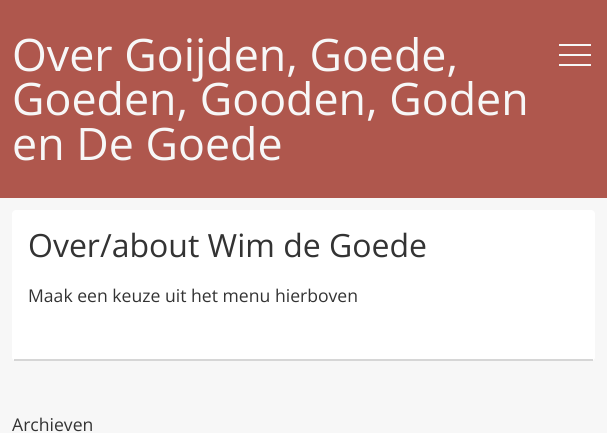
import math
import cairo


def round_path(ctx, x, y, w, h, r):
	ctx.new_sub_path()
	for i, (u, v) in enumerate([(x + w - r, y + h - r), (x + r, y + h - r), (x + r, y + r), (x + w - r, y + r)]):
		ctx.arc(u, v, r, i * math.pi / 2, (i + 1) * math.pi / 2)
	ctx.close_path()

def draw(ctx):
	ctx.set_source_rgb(0.965, 0.965, 0.965)
	ctx.paint()
	ctx.set_source_rgb(0.686, 0.341, 0.302)
	ctx.rectangle(0, 0, 607, 198)
	ctx.fill()
	ctx.select_font_face('Open Sans')
	ctx.set_font_size(44.75)
	ctx.set_source_rgb(0.965, 0.965, 0.965)
	for x, y, s in [
		(12, 71, 'Over Goijden, Goede,'),
		(12, 115, 'Goeden, Gooden, Goden'),
		(12, 160, 'en De Goede'),
	]:
		ctx.move_to(x, y)
		ctx.show_text(s)
	ctx.rectangle(559, 54, 32, 2)
	ctx.rectangle(559, 44, 32, 2)
	ctx.rectangle(559, 64, 32, 2)
	ctx.fill()
	ctx.set_source_rgb(1, 1, 1)
	round_path(ctx, 12, 210, 583, 151, 4)
	ctx.fill()
	ctx.set_source_rgba(0.2, 0.2, 0.2, 0.2)
	ctx.rectangle(14, 359, 579, 2)
	ctx.fill()
	ctx.set_font_size(32)
	ctx.set_source_rgb(0.2, 0.2, 0.2)
	ctx.move_to(28, 257)
	ctx.show_text('Over/about Wim de Goede')
	ctx.set_font_size(17.6)
	ctx.move_to(28, 302)
	ctx.show_text('Maak een keuze uit het menu hierboven')
	ctx.move_to(12, 431)
	ctx.show_text('Archieven')


surface = cairo.ImageSurface(cairo.FORMAT_RGB24, 607, 433)
ctx = cairo.Context(surface)
options = cairo.FontOptions()
options.set_hint_metrics(cairo.HINT_METRICS_OFF)
options.set_hint_style(cairo.HINT_STYLE_NONE)
ctx.set_font_options(options)
ctx.set_miter_limit(4)
draw(ctx)
surface.write_to_png('image.png')
